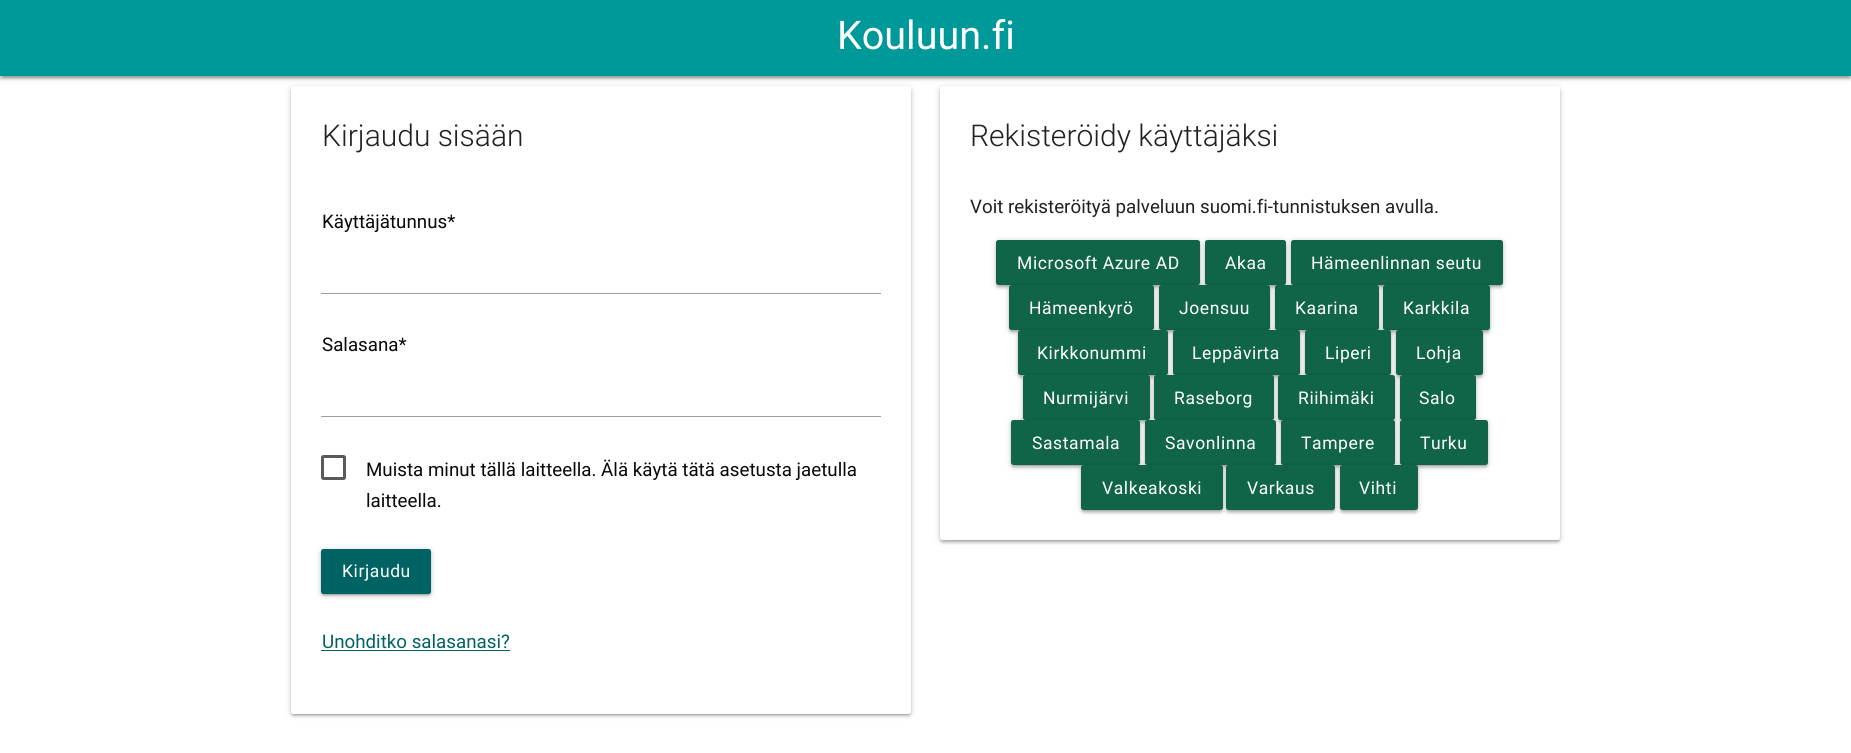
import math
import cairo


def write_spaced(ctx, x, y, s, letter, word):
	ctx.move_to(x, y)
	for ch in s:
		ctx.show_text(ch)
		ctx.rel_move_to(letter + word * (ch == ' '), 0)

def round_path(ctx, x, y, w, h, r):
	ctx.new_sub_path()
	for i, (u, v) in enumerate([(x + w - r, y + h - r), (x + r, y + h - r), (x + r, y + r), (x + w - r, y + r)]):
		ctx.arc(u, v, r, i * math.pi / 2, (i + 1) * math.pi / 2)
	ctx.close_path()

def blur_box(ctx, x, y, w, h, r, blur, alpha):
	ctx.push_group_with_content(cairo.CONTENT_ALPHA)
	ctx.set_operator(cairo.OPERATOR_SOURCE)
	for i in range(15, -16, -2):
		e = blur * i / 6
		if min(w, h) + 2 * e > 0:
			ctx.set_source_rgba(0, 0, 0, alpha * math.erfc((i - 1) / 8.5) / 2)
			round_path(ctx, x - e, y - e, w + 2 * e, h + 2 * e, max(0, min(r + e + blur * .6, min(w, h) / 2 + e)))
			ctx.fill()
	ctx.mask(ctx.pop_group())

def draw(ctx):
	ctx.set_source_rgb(1, 1, 1)
	ctx.paint()
	ctx.set_source_rgb(0, 0, 0)
	blur_box(ctx, 0, -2, 1851, 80, 0, 3, 0.2)
	blur_box(ctx, 3, 3, 1846, 75, 0, 0.5, 0.12)
	blur_box(ctx, 0, -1, 1851, 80, 0, 1, 0.14)
	ctx.set_source_rgb(0, 0.6, 0.6)
	ctx.rectangle(0, 0, 1851, 76)
	ctx.fill()
	ctx.select_font_face('Roboto')
	ctx.set_font_size(39.5)
	ctx.set_source_rgb(1, 1, 1)
	ctx.move_to(837, 49)
	ctx.show_text('Kouluun.fi')
	ctx.set_source_rgb(0, 0, 0)
	blur_box(ctx, 291, 88, 620, 627, 2.5, 3, 0.2)
	blur_box(ctx, 294, 93, 615, 622, 0, 0.5, 0.12)
	blur_box(ctx, 291, 89, 620, 627, 2.5, 1, 0.14)
	ctx.set_source_rgb(1, 1, 1)
	round_path(ctx, 291, 86, 620, 628, 2.5)
	ctx.fill()
	ctx.select_font_face('Roboto Light')
	ctx.set_font_size(30)
	ctx.set_source_rgb(0.129, 0.129, 0.129)
	ctx.move_to(322, 146)
	ctx.show_text('Kirjaudu sisään')
	ctx.select_font_face('Roboto')
	ctx.set_font_size(18.75)
	ctx.set_source_rgb(0.039, 0.039, 0.039)
	ctx.move_to(322, 228)
	ctx.show_text('Käyttäjätunnus*')
	ctx.set_source_rgb(0.62, 0.62, 0.62)
	ctx.rectangle(321, 293, 560, 1)
	ctx.fill()
	ctx.set_source_rgb(0.039, 0.039, 0.039)
	ctx.move_to(322, 351)
	ctx.show_text('Salasana*')
	ctx.set_source_rgb(0.62, 0.62, 0.62)
	ctx.rectangle(321, 416, 560, 1)
	ctx.fill()
	round_path(ctx, 322.5, 456.5, 22, 22, 1)
	ctx.set_source_rgb(0.353, 0.353, 0.353)
	ctx.set_line_width(3)
	ctx.stroke()
	ctx.set_source_rgb(0.039, 0.039, 0.039)
	ctx.move_to(366, 476)
	ctx.show_text('Muista minut tällä laitteella. Älä käytä tätä asetusta jaetulla')
	ctx.move_to(366, 507)
	ctx.show_text('laitteella.')
	ctx.set_source_rgb(0, 0, 0)
	blur_box(ctx, 321, 550, 110, 45, 2.5, 3, 0.2)
	blur_box(ctx, 324, 555, 105, 40, 0, 0.5, 0.12)
	blur_box(ctx, 321, 551, 110, 45, 2.5, 1, 0.14)
	ctx.set_source_rgb(0, 0.388, 0.388)
	round_path(ctx, 321, 549, 110, 45, 2.5)
	ctx.fill()
	ctx.set_font_size(17.5)
	ctx.set_source_rgb(1, 1, 1)
	write_spaced(ctx, 342, 577, 'Kirjaudu', 0.6, 0)
	ctx.set_font_size(18.75)
	ctx.set_source_rgb(0, 0.388, 0.388)
	ctx.move_to(322, 648)
	ctx.show_text('Unohditko salasanasi?')
	ctx.rectangle(321, 650, 189, 1)
	ctx.fill()
	ctx.set_source_rgb(0, 0, 0)
	blur_box(ctx, 940, 88, 620, 453, 2.5, 3, 0.2)
	blur_box(ctx, 943, 93, 615, 448, 0, 0.5, 0.12)
	blur_box(ctx, 940, 89, 620, 454, 2.5, 1, 0.14)
	ctx.set_source_rgb(1, 1, 1)
	round_path(ctx, 940, 86, 620, 454, 2.5)
	ctx.fill()
	ctx.select_font_face('Roboto Light')
	ctx.set_font_size(30)
	ctx.set_source_rgb(0.129, 0.129, 0.129)
	ctx.move_to(970, 146)
	ctx.show_text('Rekisteröidy käyttäjäksi')
	ctx.select_font_face('Roboto')
	ctx.set_font_size(18.75)
	ctx.move_to(970, 213)
	ctx.show_text('Voit rekisteröityä palveluun suomi.fi-tunnistuksen avulla.')
	ctx.set_source_rgb(0, 0, 0)
	blur_box(ctx, 996, 241, 204, 45, 2.5, 3, 0.2)
	blur_box(ctx, 999, 246, 199, 40, 0, 0.5, 0.12)
	blur_box(ctx, 996, 243, 204, 45, 2.5, 1, 0.14)
	ctx.set_source_rgb(0.063, 0.396, 0.286)
	round_path(ctx, 996, 240, 204, 45, 2.5)
	ctx.fill()
	ctx.set_font_size(17.5)
	ctx.set_source_rgb(1, 1, 1)
	write_spaced(ctx, 1017, 269, 'Microsoft Azure AD', 0.6, 0)
	ctx.set_source_rgb(0, 0, 0)
	blur_box(ctx, 1205, 241, 81, 45, 2.5, 3, 0.2)
	blur_box(ctx, 1208, 246, 76, 40, 0, 0.5, 0.12)
	blur_box(ctx, 1205, 243, 81, 45, 2.5, 1, 0.14)
	ctx.set_source_rgb(0.063, 0.396, 0.286)
	round_path(ctx, 1205, 240, 81, 45, 2.5)
	ctx.fill()
	ctx.set_source_rgb(1, 1, 1)
	write_spaced(ctx, 1225, 269, 'Akaa', 0.6, 0)
	ctx.set_source_rgb(0, 0, 0)
	blur_box(ctx, 1291, 241, 212, 45, 2.5, 3, 0.2)
	blur_box(ctx, 1294, 246, 206, 40, 0, 0.5, 0.12)
	blur_box(ctx, 1291, 243, 212, 45, 2.5, 1, 0.14)
	ctx.set_source_rgb(0.063, 0.396, 0.286)
	round_path(ctx, 1291, 240, 212, 45, 2.5)
	ctx.fill()
	ctx.set_source_rgb(1, 1, 1)
	write_spaced(ctx, 1311, 269, 'Hämeenlinnan seutu', 0.6, 0)
	ctx.set_source_rgb(0, 0, 0)
	blur_box(ctx, 1009, 286, 145, 45, 2.5, 3, 0.2)
	blur_box(ctx, 1011, 291, 140, 40, 0, 0.5, 0.12)
	blur_box(ctx, 1009, 288, 145, 45, 2.5, 1, 0.14)
	ctx.set_source_rgb(0.063, 0.396, 0.286)
	round_path(ctx, 1009, 285, 145, 45, 2.5)
	ctx.fill()
	ctx.set_source_rgb(1, 1, 1)
	write_spaced(ctx, 1029, 314, 'Hämeenkyrö', 0.6, 0)
	ctx.set_source_rgb(0, 0, 0)
	blur_box(ctx, 1159, 286, 111, 45, 2.5, 3, 0.2)
	blur_box(ctx, 1161, 291, 107, 40, 0, 0.5, 0.12)
	blur_box(ctx, 1159, 288, 111, 45, 2.5, 1, 0.14)
	ctx.set_source_rgb(0.063, 0.396, 0.286)
	round_path(ctx, 1159, 285, 111, 45, 2.5)
	ctx.fill()
	ctx.set_source_rgb(1, 1, 1)
	write_spaced(ctx, 1179, 314, 'Joensuu', 0.6, 0)
	ctx.set_source_rgb(0, 0, 0)
	blur_box(ctx, 1275, 286, 104, 45, 2.5, 3, 0.2)
	blur_box(ctx, 1278, 291, 98, 40, 0, 0.5, 0.12)
	blur_box(ctx, 1275, 288, 104, 45, 2.5, 1, 0.14)
	ctx.set_source_rgb(0.063, 0.396, 0.286)
	round_path(ctx, 1275, 285, 104, 45, 2.5)
	ctx.fill()
	ctx.set_source_rgb(1, 1, 1)
	write_spaced(ctx, 1295, 314, 'Kaarina', 0.6, 0)
	ctx.set_source_rgb(0, 0, 0)
	blur_box(ctx, 1383, 286, 107, 45, 2.5, 3, 0.2)
	blur_box(ctx, 1385, 291, 103, 40, 0, 0.5, 0.12)
	blur_box(ctx, 1383, 288, 107, 45, 2.5, 1, 0.14)
	ctx.set_source_rgb(0.063, 0.396, 0.286)
	round_path(ctx, 1383, 285, 107, 45, 2.5)
	ctx.fill()
	ctx.set_source_rgb(1, 1, 1)
	write_spaced(ctx, 1403, 314, 'Karkkila', 0.6, 0)
	ctx.set_source_rgb(0, 0, 0)
	blur_box(ctx, 1018, 331, 150, 45, 2.5, 3, 0.2)
	blur_box(ctx, 1020, 336, 145, 40, 0, 0.5, 0.12)
	blur_box(ctx, 1018, 333, 150, 45, 2.5, 1, 0.14)
	ctx.set_source_rgb(0.063, 0.396, 0.286)
	round_path(ctx, 1018, 330, 150, 45, 2.5)
	ctx.fill()
	ctx.set_source_rgb(1, 1, 1)
	write_spaced(ctx, 1037, 359, 'Kirkkonummi', 0.6, 0)
	ctx.set_source_rgb(0, 0, 0)
	blur_box(ctx, 1173, 331, 127, 45, 2.5, 3, 0.2)
	blur_box(ctx, 1175, 336, 123, 40, 0, 0.5, 0.12)
	blur_box(ctx, 1173, 333, 127, 45, 2.5, 1, 0.14)
	ctx.set_source_rgb(0.063, 0.396, 0.286)
	round_path(ctx, 1173, 330, 127, 45, 2.5)
	ctx.fill()
	ctx.set_source_rgb(1, 1, 1)
	write_spaced(ctx, 1192, 359, 'Leppävirta', 0.6, 0)
	ctx.set_source_rgb(0, 0, 0)
	blur_box(ctx, 1305, 331, 86, 45, 2.5, 3, 0.2)
	blur_box(ctx, 1305, 333, 86, 45, 2.5, 1, 0.14)
	ctx.set_source_rgb(0.063, 0.396, 0.286)
	round_path(ctx, 1305, 330, 86, 45, 2.5)
	ctx.fill()
	ctx.set_source_rgb(1, 1, 1)
	write_spaced(ctx, 1325, 359, 'Liperi', 0.6, 0)
	ctx.set_source_rgb(0, 0, 0)
	blur_box(ctx, 1396, 331, 87, 45, 2.5, 3, 0.2)
	blur_box(ctx, 1399, 336, 81, 40, 0, 0.5, 0.12)
	blur_box(ctx, 1396, 333, 87, 45, 2.5, 1, 0.14)
	ctx.set_source_rgb(0.063, 0.396, 0.286)
	round_path(ctx, 1396, 330, 87, 45, 2.5)
	ctx.fill()
	ctx.set_source_rgb(1, 1, 1)
	write_spaced(ctx, 1416, 359, 'Lohja', 0.6, 0)
	ctx.set_source_rgb(0, 0, 0)
	blur_box(ctx, 1023, 376, 127, 45, 2.5, 3, 0.2)
	blur_box(ctx, 1025, 381, 123, 40, 0, 0.5, 0.12)
	blur_box(ctx, 1023, 378, 127, 45, 2.5, 1, 0.14)
	ctx.set_source_rgb(0.063, 0.396, 0.286)
	round_path(ctx, 1023, 375, 127, 45, 2.5)
	ctx.fill()
	ctx.set_source_rgb(1, 1, 1)
	write_spaced(ctx, 1043, 404, 'Nurmijärvi', 0.6, 0)
	ctx.set_source_rgb(0, 0, 0)
	blur_box(ctx, 1154, 376, 120, 45, 2.5, 3, 0.2)
	blur_box(ctx, 1154, 378, 120, 45, 2.5, 1, 0.14)
	ctx.set_source_rgb(0.063, 0.396, 0.286)
	round_path(ctx, 1154, 375, 120, 45, 2.5)
	ctx.fill()
	ctx.set_source_rgb(1, 1, 1)
	write_spaced(ctx, 1174, 404, 'Raseborg', 0.6, 0)
	ctx.set_source_rgb(0, 0, 0)
	blur_box(ctx, 1278, 376, 117, 45, 2.5, 3, 0.2)
	blur_box(ctx, 1280, 381, 113, 40, 0, 0.5, 0.12)
	blur_box(ctx, 1278, 378, 117, 45, 2.5, 1, 0.14)
	ctx.set_source_rgb(0.063, 0.396, 0.286)
	round_path(ctx, 1278, 375, 117, 45, 2.5)
	ctx.fill()
	ctx.set_source_rgb(1, 1, 1)
	write_spaced(ctx, 1298, 404, 'Riihimäki', 0.6, 0)
	ctx.set_source_rgb(0, 0, 0)
	blur_box(ctx, 1400, 376, 76, 45, 2.5, 3, 0.2)
	blur_box(ctx, 1400, 378, 76, 45, 2.5, 1, 0.14)
	ctx.set_source_rgb(0.063, 0.396, 0.286)
	round_path(ctx, 1400, 375, 76, 45, 2.5)
	ctx.fill()
	ctx.set_source_rgb(1, 1, 1)
	write_spaced(ctx, 1419, 404, 'Salo', 0.6, 0)
	ctx.set_source_rgb(0, 0, 0)
	blur_box(ctx, 1011, 421, 129, 45, 2.5, 3, 0.2)
	blur_box(ctx, 1014, 426, 124, 40, 0, 0.5, 0.12)
	blur_box(ctx, 1011, 423, 129, 45, 2.5, 1, 0.14)
	ctx.set_source_rgb(0.063, 0.396, 0.286)
	round_path(ctx, 1011, 420, 129, 45, 2.5)
	ctx.fill()
	ctx.set_source_rgb(1, 1, 1)
	write_spaced(ctx, 1032, 449, 'Sastamala', 0.6, 0)
	ctx.set_source_rgb(0, 0, 0)
	blur_box(ctx, 1145, 421, 131, 45, 2.5, 3, 0.2)
	blur_box(ctx, 1148, 426, 126, 40, 0, 0.5, 0.12)
	blur_box(ctx, 1145, 423, 131, 45, 2.5, 1, 0.14)
	ctx.set_source_rgb(0.063, 0.396, 0.286)
	round_path(ctx, 1145, 420, 131, 45, 2.5)
	ctx.fill()
	ctx.set_source_rgb(1, 1, 1)
	write_spaced(ctx, 1165, 449, 'Savonlinna', 0.6, 0)
	ctx.set_source_rgb(0, 0, 0)
	blur_box(ctx, 1281, 421, 114, 45, 2.5, 3, 0.2)
	blur_box(ctx, 1284, 426, 109, 40, 0, 0.5, 0.12)
	blur_box(ctx, 1281, 423, 114, 45, 2.5, 1, 0.14)
	ctx.set_source_rgb(0.063, 0.396, 0.286)
	round_path(ctx, 1281, 420, 114, 45, 2.5)
	ctx.fill()
	ctx.set_source_rgb(1, 1, 1)
	write_spaced(ctx, 1301, 449, 'Tampere', 0.6, 0)
	ctx.set_source_rgb(0, 0, 0)
	blur_box(ctx, 1400, 421, 88, 45, 2.5, 3, 0.2)
	blur_box(ctx, 1403, 426, 82, 40, 0, 0.5, 0.12)
	blur_box(ctx, 1400, 423, 88, 45, 2.5, 1, 0.14)
	ctx.set_source_rgb(0.063, 0.396, 0.286)
	round_path(ctx, 1400, 420, 88, 45, 2.5)
	ctx.fill()
	ctx.set_source_rgb(1, 1, 1)
	write_spaced(ctx, 1420, 449, 'Turku', 0.6, 0)
	ctx.set_source_rgb(0, 0, 0)
	blur_box(ctx, 1081, 466, 142, 45, 2.5, 3, 0.2)
	blur_box(ctx, 1084, 471, 136, 40, 0, 0.5, 0.12)
	blur_box(ctx, 1081, 468, 142, 45, 2.5, 1, 0.14)
	ctx.set_source_rgb(0.063, 0.396, 0.286)
	round_path(ctx, 1081, 465, 142, 45, 2.5)
	ctx.fill()
	ctx.set_source_rgb(1, 1, 1)
	write_spaced(ctx, 1102, 494, 'Valkeakoski', 0.6, 0)
	ctx.set_source_rgb(0, 0, 0)
	blur_box(ctx, 1226, 466, 109, 45, 2.5, 3, 0.2)
	blur_box(ctx, 1229, 471, 104, 40, 0, 0.5, 0.12)
	blur_box(ctx, 1226, 468, 109, 45, 2.5, 1, 0.14)
	ctx.set_source_rgb(0.063, 0.396, 0.286)
	round_path(ctx, 1226, 465, 109, 45, 2.5)
	ctx.fill()
	ctx.set_source_rgb(1, 1, 1)
	write_spaced(ctx, 1247, 494, 'Varkaus', 0.6, 0)
	ctx.set_source_rgb(0, 0, 0)
	blur_box(ctx, 1340, 466, 78, 45, 2.5, 3, 0.2)
	blur_box(ctx, 1343, 471, 72, 40, 0, 0.5, 0.12)
	blur_box(ctx, 1340, 468, 78, 45, 2.5, 1, 0.14)
	ctx.set_source_rgb(0.063, 0.396, 0.286)
	round_path(ctx, 1340, 465, 78, 45, 2.5)
	ctx.fill()
	ctx.set_source_rgb(1, 1, 1)
	write_spaced(ctx, 1359, 494, 'Vihti', 0.6, 0)


surface = cairo.ImageSurface(cairo.FORMAT_RGB24, 1851, 753)
ctx = cairo.Context(surface)
options = cairo.FontOptions()
options.set_hint_metrics(cairo.HINT_METRICS_OFF)
options.set_hint_style(cairo.HINT_STYLE_NONE)
ctx.set_font_options(options)
ctx.set_miter_limit(4)
draw(ctx)
surface.write_to_png('image.png')
